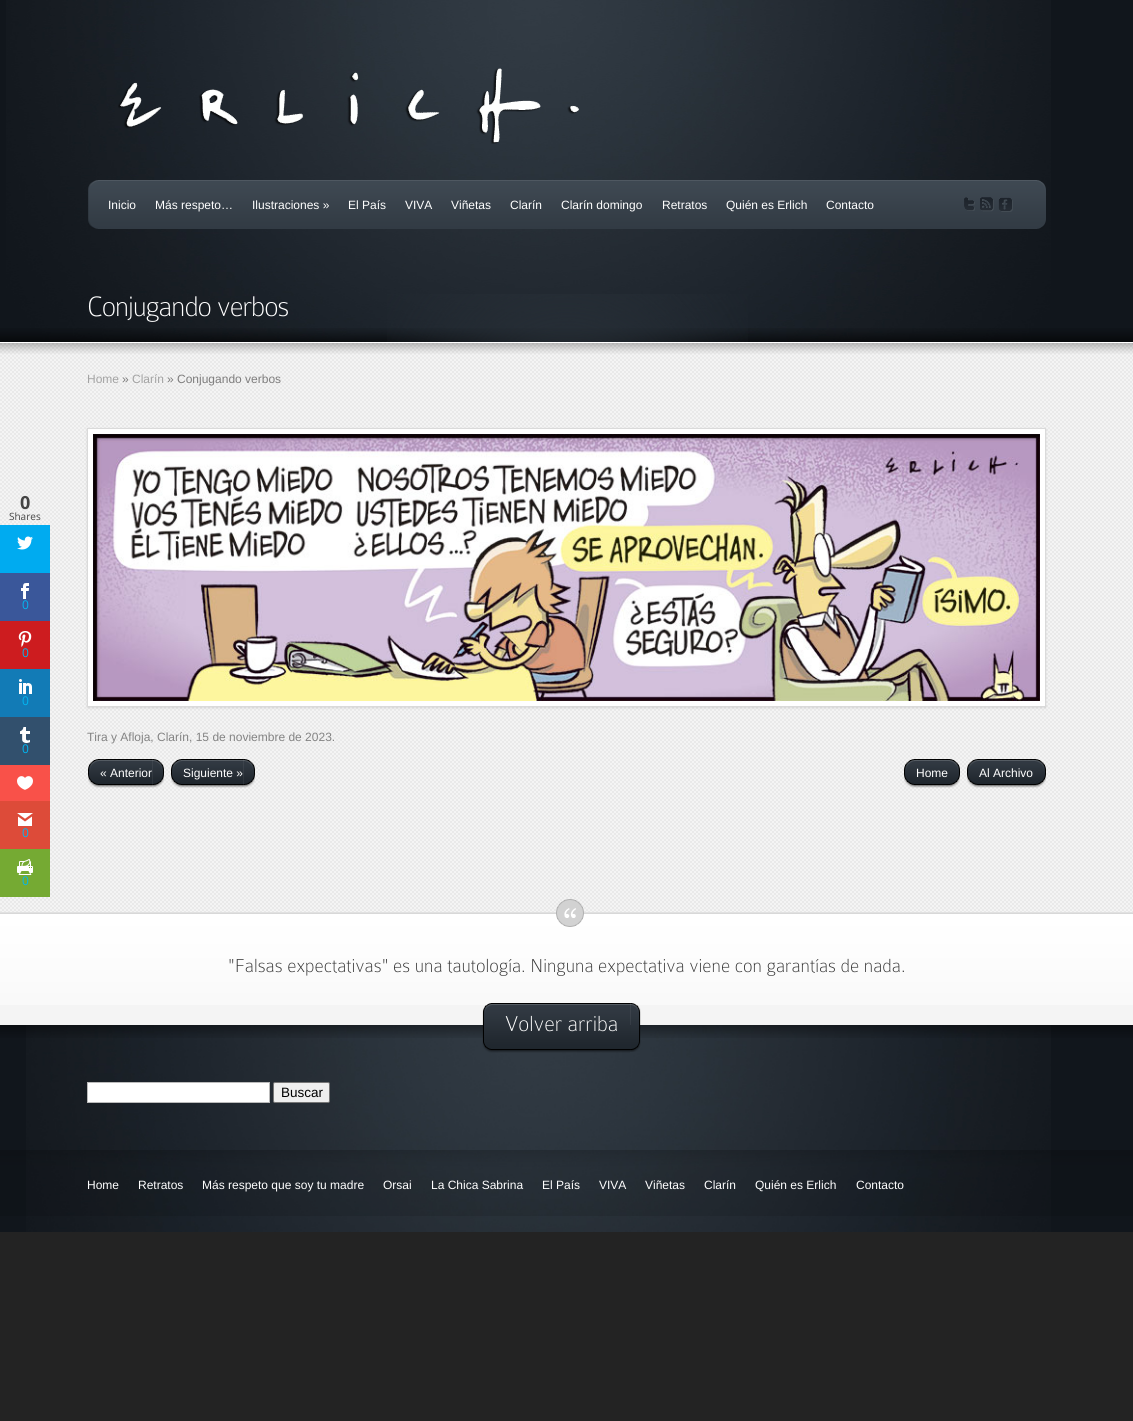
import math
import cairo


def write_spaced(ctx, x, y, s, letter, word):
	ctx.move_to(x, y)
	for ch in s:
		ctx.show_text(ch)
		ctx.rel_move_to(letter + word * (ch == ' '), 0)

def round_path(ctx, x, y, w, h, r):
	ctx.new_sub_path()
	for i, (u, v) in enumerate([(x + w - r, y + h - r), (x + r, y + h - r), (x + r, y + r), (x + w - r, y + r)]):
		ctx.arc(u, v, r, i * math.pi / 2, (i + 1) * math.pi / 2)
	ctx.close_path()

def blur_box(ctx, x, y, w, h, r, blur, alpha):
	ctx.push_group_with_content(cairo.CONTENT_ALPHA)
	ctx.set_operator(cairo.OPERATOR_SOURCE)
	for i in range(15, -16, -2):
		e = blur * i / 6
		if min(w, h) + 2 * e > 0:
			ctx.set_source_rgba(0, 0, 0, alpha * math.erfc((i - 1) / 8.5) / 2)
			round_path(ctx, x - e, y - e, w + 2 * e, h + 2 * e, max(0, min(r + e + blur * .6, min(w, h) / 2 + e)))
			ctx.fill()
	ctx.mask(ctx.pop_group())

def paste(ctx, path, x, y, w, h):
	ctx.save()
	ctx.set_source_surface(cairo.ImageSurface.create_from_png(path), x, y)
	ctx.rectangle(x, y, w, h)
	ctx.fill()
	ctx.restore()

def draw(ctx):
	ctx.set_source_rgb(0.137, 0.137, 0.137)
	ctx.paint()
	ctx.set_source_rgb(0.067, 0.086, 0.11)
	ctx.rectangle(0, 0, 1133, 342)
	ctx.fill()
	paste(ctx, 'media/1.png', 6, 0, 1045, 342)
	paste(ctx, 'media/2.png', 0, 328, 1133, 14)
	paste(ctx, 'media/3.png', 387, 294, 361, 48)
	paste(ctx, 'media/4.png', 118, 68, 461, 76)
	paste(ctx, 'media/5.png', 88, 180, 11, 49)
	paste(ctx, 'media/6.png', 1036, 180, 10, 49)
	paste(ctx, 'media/7.png', 99, 180, 937, 49)
	ctx.select_font_face('Liberation Sans')
	ctx.set_font_size(12)
	ctx.set_source_rgb(1, 1, 1)
	for x, y, s in [
		(108, 209, 'Inicio'),
		(155, 209, 'Más respeto…'),
		(252, 209, 'Ilustraciones »'),
		(348, 209, 'El País'),
		(405, 209, 'VIVA'),
		(451, 209, 'Viñetas'),
		(510, 209, 'Clarín'),
		(561, 209, 'Clarín domingo'),
		(662, 209, 'Retratos'),
		(726, 209, 'Quién es Erlich'),
		(826, 209, 'Contacto'),
	]:
		ctx.move_to(x, y)
		ctx.show_text(s)
	paste(ctx, 'media/8.png', 964, 197, 11, 14)
	paste(ctx, 'media/9.png', 980, 197, 14, 15)
	paste(ctx, 'media/10.png', 998, 197, 15, 15)
	ctx.select_font_face('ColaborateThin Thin')
	ctx.set_font_size(30)
	write_spaced(ctx, 87, 316, 'Conjugando verbos', -1, 0)
	paste(ctx, 'media/19.png', 0, 343, 1133, 569)
	ctx.select_font_face('Open Sans', cairo.FONT_SLANT_NORMAL, cairo.FONT_WEIGHT_BOLD)
	ctx.set_font_size(18)
	ctx.set_source_rgb(0.267, 0.267, 0.267)
	ctx.move_to(20, 509)
	ctx.show_text('0')
	ctx.select_font_face('Open Sans')
	ctx.set_font_size(10)
	ctx.move_to(9, 520)
	ctx.show_text('Shares')
	ctx.set_source_rgb(0, 0.671, 0.941)
	ctx.rectangle(0, 525, 50, 48)
	ctx.fill()
	paste(ctx, 'media/11.png', 17, 536, 16, 14)
	ctx.set_source_rgb(0.227, 0.341, 0.604)
	ctx.rectangle(0, 573, 50, 48)
	ctx.fill()
	paste(ctx, 'media/12.png', 21, 583, 8, 16)
	ctx.set_font_size(12)
	ctx.set_source_rgb(0, 0.718, 0.953)
	ctx.move_to(22, 609)
	ctx.show_text('0')
	ctx.set_source_rgb(0.804, 0.11, 0.122)
	ctx.rectangle(0, 621, 50, 48)
	ctx.fill()
	paste(ctx, 'media/13.png', 18, 631, 14, 16)
	ctx.set_source_rgb(0, 0.718, 0.953)
	ctx.move_to(22, 657)
	ctx.show_text('0')
	ctx.set_source_rgb(0.071, 0.482, 0.714)
	ctx.rectangle(0, 669, 50, 48)
	ctx.fill()
	paste(ctx, 'media/14.png', 19, 679, 13, 15)
	ctx.set_source_rgb(0, 0.718, 0.953)
	ctx.move_to(22, 705)
	ctx.show_text('0')
	ctx.set_source_rgb(0.196, 0.314, 0.427)
	ctx.rectangle(0, 717, 50, 48)
	ctx.fill()
	paste(ctx, 'media/15.png', 20, 727, 10, 16)
	ctx.set_source_rgb(0, 0.718, 0.953)
	ctx.move_to(22, 753)
	ctx.show_text('0')
	ctx.set_source_rgb(0.976, 0.318, 0.286)
	ctx.rectangle(0, 765, 50, 36)
	ctx.fill()
	paste(ctx, 'media/16.png', 17, 776, 16, 14)
	ctx.set_source_rgb(0.867, 0.294, 0.224)
	ctx.rectangle(0, 801, 50, 48)
	ctx.fill()
	paste(ctx, 'media/17.png', 17, 813, 16, 13)
	ctx.set_source_rgb(0, 0.718, 0.953)
	ctx.move_to(22, 837)
	ctx.show_text('0')
	ctx.set_source_rgb(0.459, 0.667, 0.2)
	ctx.rectangle(0, 849, 50, 48)
	ctx.fill()
	paste(ctx, 'media/18.png', 17, 859, 16, 16)
	ctx.set_source_rgb(0, 0.718, 0.953)
	ctx.move_to(22, 885)
	ctx.show_text('0')
	ctx.set_source_rgb(1, 1, 1)
	ctx.rectangle(0, 342, 1133, 1)
	ctx.fill()
	paste(ctx, 'media/20.png', 0, 343, 1133, 11)
	ctx.select_font_face('Liberation Sans')
	ctx.set_source_rgb(0.639, 0.639, 0.639)
	ctx.move_to(87, 383)
	ctx.show_text('Home')
	ctx.set_source_rgb(0.494, 0.49, 0.49)
	ctx.move_to(122, 383)
	ctx.show_text('»')
	ctx.set_source_rgb(0.639, 0.639, 0.639)
	ctx.move_to(132, 383)
	ctx.show_text('Clarín')
	ctx.set_source_rgb(0.494, 0.49, 0.49)
	ctx.move_to(167, 383)
	ctx.show_text('» Conjugando verbos')
	ctx.set_source_rgb(0, 0, 0)
	blur_box(ctx, 87, 429, 959, 279, 0, 1, 0.1)
	ctx.set_source_rgb(1, 1, 1)
	ctx.rectangle(87.5, 428.5, 958, 278)
	ctx.fill_preserve()
	ctx.set_source_rgb(0.855, 0.855, 0.855)
	ctx.set_line_width(1)
	ctx.stroke()
	paste(ctx, 'media/21.png', 93, 434, 947, 267)
	paste(ctx, 'media/22.png', 93, 434, 947, 267)
	ctx.set_source_rgb(0.514, 0.514, 0.514)
	ctx.move_to(87, 741)
	ctx.show_text('Tira y Afloja, Clarín, 15 de noviembre de 2023.')
	paste(ctx, 'media/23.png', 152, 759, 12, 29)
	paste(ctx, 'media/24.png', 88, 759, 64, 29)
	ctx.set_source_rgb(1, 1, 1)
	ctx.move_to(100, 777)
	ctx.show_text('« Anterior')
	paste(ctx, 'media/25.png', 243, 759, 12, 29)
	paste(ctx, 'media/26.png', 171, 759, 72, 29)
	ctx.move_to(183, 777)
	ctx.show_text('Siguiente »')
	paste(ctx, 'media/27.png', 948, 759, 12, 29)
	paste(ctx, 'media/28.png', 904, 759, 44, 29)
	ctx.move_to(916, 777)
	ctx.show_text('Home')
	paste(ctx, 'media/29.png', 1033, 759, 13, 29)
	paste(ctx, 'media/30.png', 967, 759, 67, 29)
	ctx.move_to(979, 777)
	ctx.show_text('Al Archivo')
	ctx.set_source_rgb(0.957, 0.957, 0.957)
	ctx.rectangle(0, 1005, 1133, 20)
	ctx.fill()
	paste(ctx, 'media/31.png', 0, 912, 1133, 93)
	paste(ctx, 'media/32.png', 556, 899, 28, 28)
	ctx.select_font_face('ColaborateThin Thin')
	ctx.set_font_size(20)
	ctx.set_source_rgb(0.204, 0.204, 0.204)
	ctx.move_to(228, 972)
	ctx.show_text('"Falsas expectativas" es una tautología. Ninguna expectativa viene con garantías de nada.')
	ctx.set_source_rgb(0.067, 0.086, 0.11)
	ctx.rectangle(0, 1025, 1133, 207)
	ctx.fill()
	paste(ctx, 'media/35.png', 26, 1025, 1025, 207)
	paste(ctx, 'media/36.png', 0, 1025, 1133, 13)
	paste(ctx, 'media/33.png', 630, 1003, 11, 49)
	paste(ctx, 'media/34.png', 482, 1003, 148, 50)
	ctx.set_font_size(23)
	ctx.set_source_rgb(1, 1, 1)
	ctx.move_to(505, 1031)
	ctx.show_text('Volver arriba')
	ctx.rectangle(87.5, 1082.5, 182, 20)
	ctx.fill_preserve()
	ctx.set_source_rgb(0.733, 0.733, 0.733)
	ctx.stroke()
	ctx.set_source_rgb(0.937, 0.937, 0.937)
	round_path(ctx, 273.5, 1082.5, 56, 20, 1.5)
	ctx.fill_preserve()
	ctx.set_source_rgb(0.463, 0.463, 0.463)
	ctx.stroke()
	ctx.select_font_face('Liberation Sans')
	ctx.set_font_size(13.5)
	ctx.set_source_rgb(0, 0, 0)
	ctx.move_to(281, 1097)
	ctx.show_text('Buscar')
	paste(ctx, 'media/37.png', 0, 1150, 1133, 66)
	ctx.set_font_size(12)
	ctx.set_source_rgb(1, 1, 1)
	for x, y, s in [
		(87, 1189, 'Home'),
		(138, 1189, 'Retratos'),
		(202, 1189, 'Más respeto que soy tu madre'),
		(383, 1189, 'Orsai'),
		(431, 1189, 'La Chica Sabrina'),
		(542, 1189, 'El País'),
		(599, 1189, 'VIVA'),
		(645, 1189, 'Viñetas'),
		(704, 1189, 'Clarín'),
		(755, 1189, 'Quién es Erlich'),
		(856, 1189, 'Contacto'),
	]:
		ctx.move_to(x, y)
		ctx.show_text(s)


surface = cairo.ImageSurface(cairo.FORMAT_RGB24, 1133, 1421)
ctx = cairo.Context(surface)
options = cairo.FontOptions()
options.set_hint_metrics(cairo.HINT_METRICS_OFF)
options.set_hint_style(cairo.HINT_STYLE_NONE)
ctx.set_font_options(options)
ctx.set_miter_limit(4)
draw(ctx)
surface.write_to_png('image.png')
